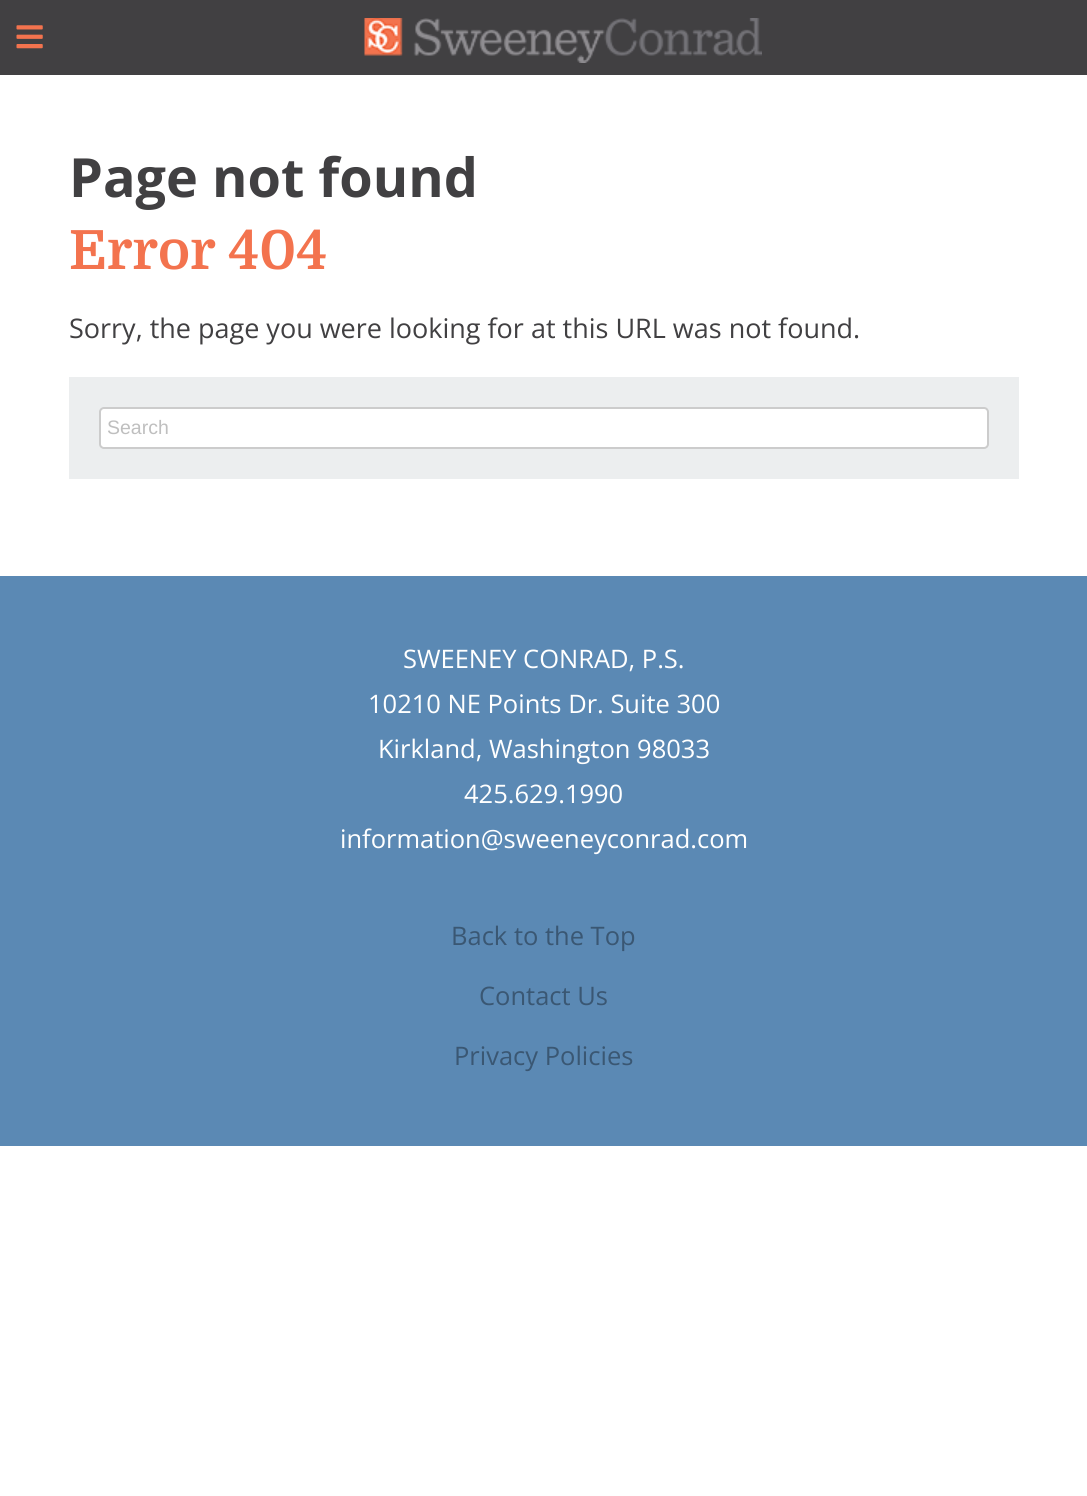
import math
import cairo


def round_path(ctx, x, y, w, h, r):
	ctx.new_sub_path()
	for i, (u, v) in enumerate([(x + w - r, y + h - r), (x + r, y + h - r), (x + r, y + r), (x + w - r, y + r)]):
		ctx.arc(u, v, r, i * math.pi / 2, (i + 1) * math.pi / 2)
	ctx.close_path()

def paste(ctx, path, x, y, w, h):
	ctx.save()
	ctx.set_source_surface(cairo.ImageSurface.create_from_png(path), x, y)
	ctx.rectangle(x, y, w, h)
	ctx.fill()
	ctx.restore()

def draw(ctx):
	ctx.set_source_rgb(1, 1, 1)
	ctx.paint()
	ctx.set_source_rgb(0.255, 0.251, 0.259)
	ctx.rectangle(0, 0, 1087, 75)
	ctx.fill()
	paste(ctx, 'media/1.png', 16, 25, 27, 24)
	paste(ctx, 'media/2.png', 364, 18, 398, 45)
	ctx.select_font_face('Open Sans', cairo.FONT_SLANT_NORMAL, cairo.FONT_WEIGHT_BOLD)
	ctx.set_font_size(54)
	ctx.move_to(69, 197)
	ctx.show_text('Page not found')
	ctx.select_font_face('Domine', cairo.FONT_SLANT_NORMAL, cairo.FONT_WEIGHT_BOLD)
	ctx.set_source_rgb(0.953, 0.451, 0.306)
	ctx.move_to(69, 269)
	ctx.show_text('Error 404')
	ctx.select_font_face('Open Sans')
	ctx.set_font_size(27)
	ctx.set_source_rgb(0.255, 0.251, 0.259)
	ctx.move_to(69, 338)
	ctx.show_text('Sorry, the page you were looking for at this URL was not found.')
	ctx.set_source_rgb(0.925, 0.933, 0.937)
	ctx.rectangle(69, 377, 950, 102)
	ctx.fill()
	ctx.set_source_rgb(1, 1, 1)
	round_path(ctx, 100, 408, 888, 40, 4)
	ctx.fill_preserve()
	ctx.set_source_rgb(0.8, 0.8, 0.8)
	ctx.stroke()
	ctx.select_font_face('Liberation Sans')
	ctx.set_font_size(19.5)
	ctx.set_source_rgb(0.749, 0.749, 0.749)
	ctx.move_to(107, 434)
	ctx.show_text('Search')
	ctx.set_source_rgb(0.357, 0.537, 0.706)
	ctx.rectangle(0, 576, 1087, 570)
	ctx.fill()
	ctx.select_font_face('Open Sans')
	ctx.set_font_size(25.5)
	ctx.set_source_rgb(1, 1, 1)
	for x, y, s in [
		(403, 668, 'SWEENEY CONRAD, P.S.'),
		(368, 713, '10210 NE Points Dr. Suite 300'),
		(378, 758, 'Kirkland, Washington 98033'),
		(464, 803, '425.629.1990'),
		(340, 848, 'information@sweeneyconrad.com'),
	]:
		ctx.move_to(x, y)
		ctx.show_text(s)
	ctx.set_source_rgb(0.227, 0.341, 0.451)
	for x, y, s in [
		(451, 945, 'Back to the Top'),
		(479, 1005, 'Contact Us'),
		(454, 1065, 'Privacy Policies'),
	]:
		ctx.move_to(x, y)
		ctx.show_text(s)


surface = cairo.ImageSurface(cairo.FORMAT_RGB24, 1087, 1496)
ctx = cairo.Context(surface)
options = cairo.FontOptions()
options.set_hint_metrics(cairo.HINT_METRICS_OFF)
options.set_hint_style(cairo.HINT_STYLE_NONE)
ctx.set_font_options(options)
ctx.set_miter_limit(4)
draw(ctx)
surface.write_to_png('image.png')
